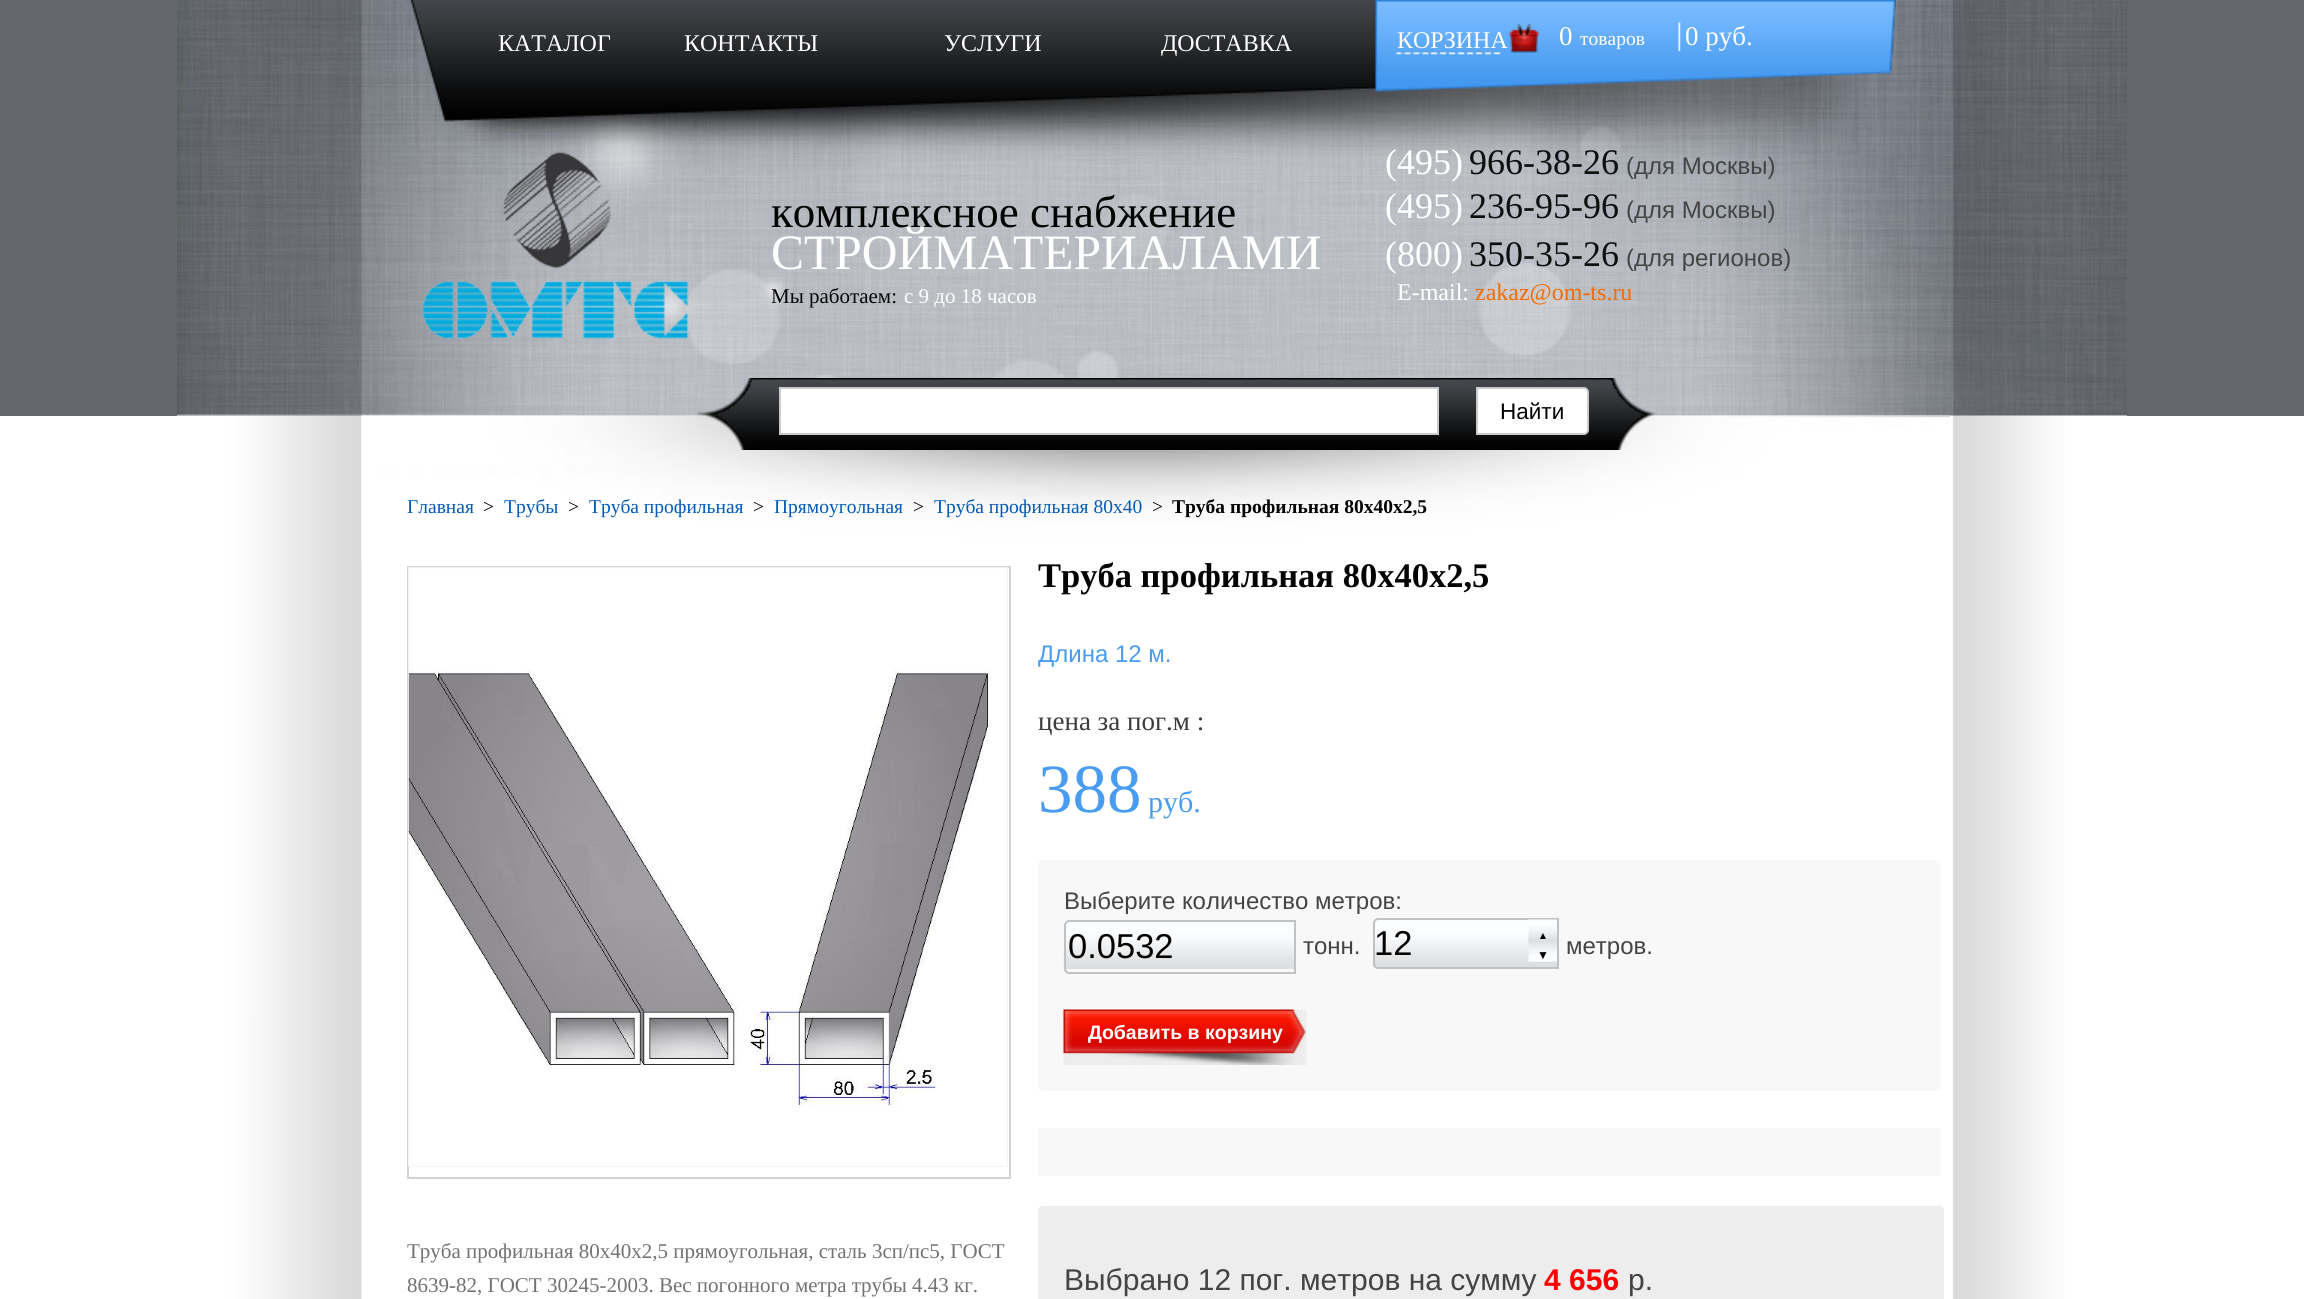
import math
import cairo


def round_path(ctx, x, y, w, h, r):
	ctx.new_sub_path()
	for i, (u, v) in enumerate([(x + w - r, y + h - r), (x + r, y + h - r), (x + r, y + r), (x + w - r, y + r)]):
		ctx.arc(u, v, r, i * math.pi / 2, (i + 1) * math.pi / 2)
	ctx.close_path()

def paste(ctx, path, x, y, w, h):
	ctx.save()
	ctx.set_source_surface(cairo.ImageSurface.create_from_png(path), x, y)
	ctx.rectangle(x, y, w, h)
	ctx.fill()
	ctx.restore()

def draw(ctx):
	ctx.set_source_rgb(0.388, 0.404, 0.427)
	ctx.paint()
	paste(ctx, 'media/1.png', 177, 0, 1950, 416)
	paste(ctx, 'media/2.png', 410, 0, 1486, 122)
	ctx.select_font_face('Liberation Serif')
	ctx.set_font_size(24)
	ctx.set_source_rgb(1, 1, 1)
	for x, y, s in [
		(498, 51, 'КАТАЛОГ'),
		(684, 51, 'КОНТАКТЫ'),
		(944, 51, 'УСЛУГИ'),
		(1161, 51, 'ДОСТАВКА'),
	]:
		ctx.move_to(x, y)
		ctx.show_text(s)
	paste(ctx, 'media/3.png', 1396, 24, 143, 31)
	ctx.move_to(1397, 48)
	ctx.show_text('КОРЗИНА')
	ctx.set_font_size(27)
	ctx.move_to(1559, 45)
	ctx.show_text('0')
	ctx.set_font_size(19.5)
	ctx.move_to(1580, 45)
	ctx.show_text('товаров')
	ctx.set_font_size(27)
	ctx.move_to(1685, 45)
	ctx.show_text('0 руб.')
	paste(ctx, 'media/4.png', 422, 151, 267, 189)
	ctx.set_font_size(45)
	ctx.set_source_rgb(0.012, 0.012, 0.012)
	ctx.move_to(771, 227)
	ctx.show_text('комплексное снабжение')
	ctx.set_font_size(49.5)
	ctx.set_source_rgb(1, 1, 1)
	ctx.move_to(771, 269)
	ctx.show_text('СТРОЙМАТЕРИАЛАМИ')
	ctx.set_font_size(21)
	ctx.set_source_rgb(0.031, 0.031, 0.035)
	ctx.move_to(771, 303)
	ctx.show_text('Мы работаем:')
	ctx.set_source_rgb(1, 1, 1)
	ctx.move_to(904, 303)
	ctx.show_text('с 9 до 18 часов')
	ctx.set_font_size(36)
	ctx.move_to(1385, 174)
	ctx.show_text('(495)')
	ctx.set_source_rgb(0.059, 0.059, 0.063)
	ctx.move_to(1469, 174)
	ctx.show_text('966-38-26')
	ctx.select_font_face('Liberation Sans')
	ctx.set_font_size(24)
	ctx.set_source_rgb(0.267, 0.267, 0.267)
	ctx.move_to(1626, 174)
	ctx.show_text('(для Москвы)')
	ctx.select_font_face('Liberation Serif')
	ctx.set_font_size(36)
	ctx.set_source_rgb(1, 1, 1)
	ctx.move_to(1385, 218)
	ctx.show_text('(495)')
	ctx.set_source_rgb(0.059, 0.059, 0.063)
	ctx.move_to(1469, 218)
	ctx.show_text('236-95-96')
	ctx.select_font_face('Liberation Sans')
	ctx.set_font_size(24)
	ctx.set_source_rgb(0.267, 0.267, 0.267)
	ctx.move_to(1626, 218)
	ctx.show_text('(для Москвы)')
	ctx.select_font_face('Liberation Serif')
	ctx.set_font_size(36)
	ctx.set_source_rgb(1, 1, 1)
	ctx.move_to(1385, 266)
	ctx.show_text('(800)')
	ctx.set_source_rgb(0.059, 0.059, 0.063)
	ctx.move_to(1469, 266)
	ctx.show_text('350-35-26')
	ctx.select_font_face('Liberation Sans')
	ctx.set_font_size(24)
	ctx.set_source_rgb(0.267, 0.267, 0.267)
	ctx.move_to(1626, 266)
	ctx.show_text('(для регионов)')
	ctx.select_font_face('Liberation Serif')
	ctx.set_source_rgb(1, 1, 1)
	ctx.move_to(1397, 300)
	ctx.show_text('E-mail:')
	ctx.set_source_rgb(0.953, 0.424, 0)
	ctx.move_to(1475, 300)
	ctx.show_text('zakaz@om-ts.ru')
	ctx.set_source_rgb(1, 1, 1)
	ctx.rectangle(0, 416, 2304, 883)
	ctx.fill()
	paste(ctx, 'media/6.png', 177, 415, 1950, 884)
	paste(ctx, 'media/7.png', 361, 415, 1589, 148)
	paste(ctx, 'media/5.png', 697, 378, 961, 72)
	ctx.rectangle(780, 388, 658, 46)
	ctx.fill_preserve()
	ctx.set_source_rgb(0.796, 0.796, 0.796)
	ctx.stroke()
	ctx.set_source_rgb(1, 1, 1)
	ctx.new_path()
	ctx.move_to(1477, 388)
	ctx.line_to(1584, 388)
	ctx.curve_to(1586, 388, 1588, 390, 1588, 392)
	ctx.line_to(1588, 430)
	ctx.curve_to(1588, 432, 1586, 434, 1584, 434)
	ctx.line_to(1477, 434)
	ctx.close_path()
	ctx.fill_preserve()
	ctx.set_source_rgb(0.796, 0.796, 0.796)
	ctx.stroke()
	ctx.select_font_face('Liberation Sans')
	ctx.set_font_size(22.5)
	ctx.set_source_rgb(0.012, 0.012, 0.012)
	ctx.move_to(1500, 419)
	ctx.show_text('Найти')
	ctx.select_font_face('Liberation Serif')
	ctx.set_font_size(19.5)
	ctx.set_source_rgb(0.004, 0.353, 0.714)
	ctx.move_to(407, 513)
	ctx.show_text('Главная')
	ctx.set_source_rgb(0.012, 0.012, 0.012)
	ctx.move_to(483, 513)
	ctx.show_text('>')
	ctx.set_source_rgb(0.004, 0.353, 0.714)
	ctx.move_to(504, 513)
	ctx.show_text('Трубы')
	ctx.set_source_rgb(0.012, 0.012, 0.012)
	ctx.move_to(568, 513)
	ctx.show_text('>')
	ctx.set_source_rgb(0.004, 0.353, 0.714)
	ctx.move_to(589, 513)
	ctx.show_text('Труба профильная')
	ctx.set_source_rgb(0.012, 0.012, 0.012)
	ctx.move_to(753, 513)
	ctx.show_text('>')
	ctx.set_source_rgb(0.004, 0.353, 0.714)
	ctx.move_to(774, 513)
	ctx.show_text('Прямоугольная')
	ctx.set_source_rgb(0.012, 0.012, 0.012)
	ctx.move_to(913, 513)
	ctx.show_text('>')
	ctx.set_source_rgb(0.004, 0.353, 0.714)
	ctx.move_to(934, 513)
	ctx.show_text('Труба профильная 80х40')
	ctx.set_source_rgb(0.012, 0.012, 0.012)
	ctx.move_to(1152, 513)
	ctx.show_text('>')
	ctx.select_font_face('Liberation Serif', cairo.FONT_SLANT_NORMAL, cairo.FONT_WEIGHT_BOLD)
	ctx.move_to(1172, 513)
	ctx.show_text('Труба профильная 80х40х2,5')
	ctx.rectangle(408, 567, 602, 611)
	ctx.set_source_rgb(0.824, 0.824, 0.824)
	ctx.stroke()
	paste(ctx, 'media/8.png', 408, 567, 600, 600)
	ctx.select_font_face('Liberation Serif')
	ctx.set_font_size(21)
	ctx.set_source_rgb(0.447, 0.447, 0.447)
	ctx.move_to(407, 1258)
	ctx.show_text('Труба профильная 80х40х2,5 прямоугольная, сталь 3сп/пс5, ГОСТ')
	ctx.move_to(407, 1292)
	ctx.show_text('8639-82, ГОСТ 30245-2003. Вес погонного метра трубы 4.43 кг.')
	ctx.select_font_face('Liberation Serif', cairo.FONT_SLANT_NORMAL, cairo.FONT_WEIGHT_BOLD)
	ctx.set_font_size(34.5)
	ctx.set_source_rgb(0.012, 0.012, 0.012)
	ctx.move_to(1038, 587)
	ctx.show_text('Труба профильная 80х40х2,5')
	ctx.select_font_face('Liberation Sans')
	ctx.set_font_size(24)
	ctx.set_source_rgb(0.29, 0.612, 0.945)
	ctx.move_to(1038, 662)
	ctx.show_text('Длина 12 м.')
	ctx.select_font_face('Liberation Serif')
	ctx.set_font_size(27)
	ctx.set_source_rgb(0.235, 0.235, 0.235)
	ctx.move_to(1038, 730)
	ctx.show_text('цена за пог.м :')
	ctx.set_font_size(69)
	ctx.set_source_rgb(0.29, 0.612, 0.945)
	ctx.move_to(1038, 812)
	ctx.show_text('388')
	ctx.set_font_size(30)
	ctx.move_to(1148, 812)
	ctx.show_text('руб.')
	ctx.set_source_rgb(0.969, 0.969, 0.969)
	round_path(ctx, 1038, 860, 903, 231, 5)
	ctx.fill()
	ctx.select_font_face('Liberation Sans')
	ctx.set_font_size(24)
	ctx.set_source_rgb(0.267, 0.267, 0.267)
	ctx.move_to(1064, 909)
	ctx.show_text('Выберите количество метров:')
	paste(ctx, 'media/9.png', 1063, 921, 231, 48)
	ctx.new_path()
	ctx.move_to(1069, 921)
	ctx.line_to(1295, 921)
	ctx.line_to(1295, 973)
	ctx.line_to(1069, 973)
	ctx.curve_to(1067, 973, 1065, 971, 1065, 969)
	ctx.line_to(1065, 925)
	ctx.curve_to(1065, 923, 1067, 921, 1069, 921)
	ctx.close_path()
	ctx.set_source_rgb(0.753, 0.757, 0.765)
	ctx.stroke()
	ctx.set_font_size(34.5)
	ctx.set_source_rgb(0.012, 0.012, 0.012)
	ctx.move_to(1068, 958)
	ctx.show_text('0.0532')
	ctx.set_font_size(24)
	ctx.set_source_rgb(0.267, 0.267, 0.267)
	ctx.move_to(1303, 954)
	ctx.show_text('тонн.')
	paste(ctx, 'media/10.png', 1373, 919, 184, 49)
	ctx.new_path()
	ctx.move_to(1378, 919)
	ctx.line_to(1558, 919)
	ctx.line_to(1558, 968)
	ctx.line_to(1378, 968)
	ctx.curve_to(1376, 968, 1374, 966, 1374, 964)
	ctx.line_to(1374, 923)
	ctx.curve_to(1374, 921, 1376, 919, 1378, 919)
	ctx.close_path()
	ctx.set_source_rgb(0.753, 0.757, 0.765)
	ctx.stroke()
	ctx.set_font_size(34.5)
	ctx.set_source_rgb(0.012, 0.012, 0.012)
	ctx.move_to(1374, 955)
	ctx.show_text('12')
	paste(ctx, 'media/11.png', 1528, 919, 29, 23)
	ctx.set_font_size(12)
	ctx.move_to(1537, 940)
	ctx.show_text('▲')
	paste(ctx, 'media/12.png', 1528, 939, 29, 23)
	ctx.move_to(1537, 959)
	ctx.show_text('▼')
	ctx.set_font_size(24)
	ctx.set_source_rgb(0.267, 0.267, 0.267)
	ctx.move_to(1566, 954)
	ctx.show_text('метров.')
	paste(ctx, 'media/13.png', 1063, 1009, 244, 56)
	ctx.select_font_face('Liberation Sans', cairo.FONT_SLANT_NORMAL, cairo.FONT_WEIGHT_BOLD)
	ctx.set_font_size(19.5)
	ctx.set_source_rgb(1, 1, 1)
	ctx.move_to(1088, 1039)
	ctx.show_text('Добавить в корзину')
	ctx.set_source_rgb(0.969, 0.969, 0.969)
	ctx.rectangle(1038, 1128, 903, 48)
	ctx.fill()
	ctx.set_source_rgb(0.929, 0.929, 0.929)
	round_path(ctx, 1038, 1206, 906, 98, 5)
	ctx.fill()
	ctx.set_fill_rule(cairo.FILL_RULE_EVEN_ODD)
	ctx.new_path()
	ctx.move_to(1042, 1206)
	ctx.line_to(1940, 1206)
	ctx.curve_to(1942, 1206, 1944, 1208, 1944, 1210)
	ctx.line_to(1944, 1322)
	ctx.curve_to(1944, 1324, 1942, 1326, 1940, 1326)
	ctx.line_to(1042, 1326)
	ctx.curve_to(1040, 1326, 1038, 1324, 1038, 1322)
	ctx.line_to(1038, 1210)
	ctx.curve_to(1038, 1208, 1040, 1206, 1042, 1206)
	ctx.close_path()
	ctx.move_to(1042, 1206)
	ctx.line_to(1940, 1206)
	ctx.curve_to(1941, 1206, 1942, 1208, 1942, 1210)
	ctx.line_to(1942, 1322)
	ctx.curve_to(1942, 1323, 1941, 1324, 1940, 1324)
	ctx.line_to(1042, 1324)
	ctx.curve_to(1041, 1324, 1040, 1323, 1040, 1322)
	ctx.line_to(1040, 1210)
	ctx.curve_to(1040, 1208, 1041, 1206, 1042, 1206)
	ctx.close_path()
	ctx.fill()
	ctx.select_font_face('Liberation Sans')
	ctx.set_font_size(30)
	ctx.set_source_rgb(0.267, 0.267, 0.267)
	ctx.move_to(1064, 1290)
	ctx.show_text('Выбрано 12 пог. метров на сумму')
	ctx.select_font_face('Liberation Sans', cairo.FONT_SLANT_NORMAL, cairo.FONT_WEIGHT_BOLD)
	ctx.set_source_rgb(1, 0, 0)
	ctx.move_to(1544, 1290)
	ctx.show_text('4 656')
	ctx.select_font_face('Liberation Sans')
	ctx.set_source_rgb(0.267, 0.267, 0.267)
	ctx.move_to(1628, 1290)
	ctx.show_text('р.')


surface = cairo.ImageSurface(cairo.FORMAT_RGB24, 2304, 1299)
ctx = cairo.Context(surface)
options = cairo.FontOptions()
options.set_hint_metrics(cairo.HINT_METRICS_OFF)
options.set_hint_style(cairo.HINT_STYLE_NONE)
ctx.set_font_options(options)
ctx.set_miter_limit(4)
draw(ctx)
surface.write_to_png('image.png')
